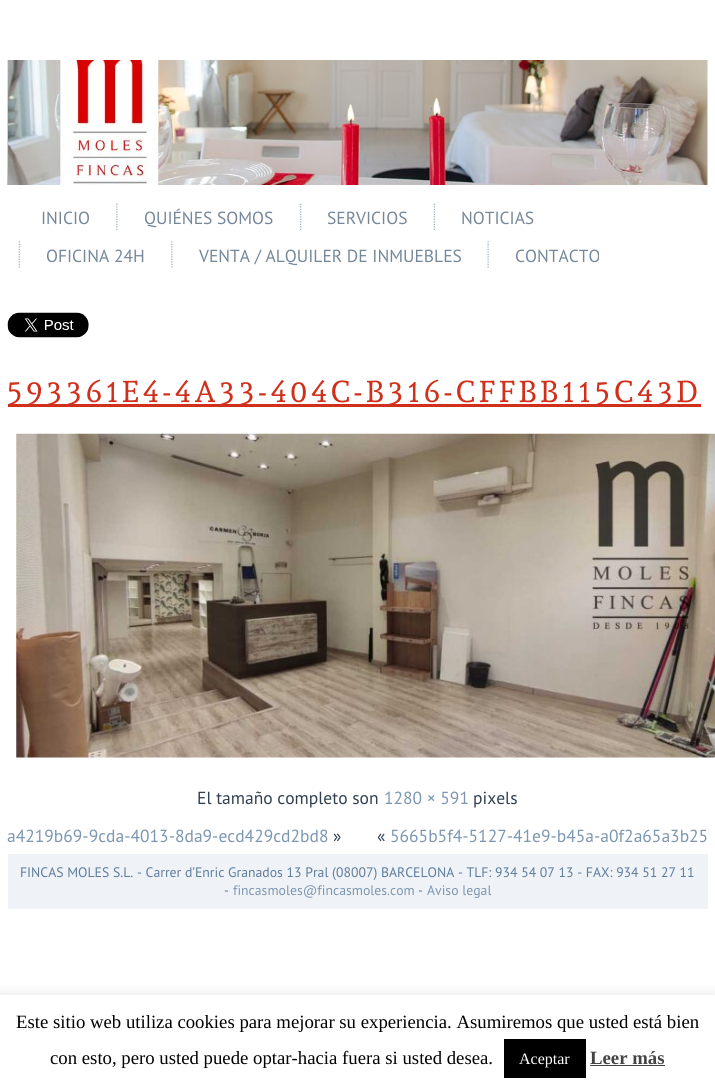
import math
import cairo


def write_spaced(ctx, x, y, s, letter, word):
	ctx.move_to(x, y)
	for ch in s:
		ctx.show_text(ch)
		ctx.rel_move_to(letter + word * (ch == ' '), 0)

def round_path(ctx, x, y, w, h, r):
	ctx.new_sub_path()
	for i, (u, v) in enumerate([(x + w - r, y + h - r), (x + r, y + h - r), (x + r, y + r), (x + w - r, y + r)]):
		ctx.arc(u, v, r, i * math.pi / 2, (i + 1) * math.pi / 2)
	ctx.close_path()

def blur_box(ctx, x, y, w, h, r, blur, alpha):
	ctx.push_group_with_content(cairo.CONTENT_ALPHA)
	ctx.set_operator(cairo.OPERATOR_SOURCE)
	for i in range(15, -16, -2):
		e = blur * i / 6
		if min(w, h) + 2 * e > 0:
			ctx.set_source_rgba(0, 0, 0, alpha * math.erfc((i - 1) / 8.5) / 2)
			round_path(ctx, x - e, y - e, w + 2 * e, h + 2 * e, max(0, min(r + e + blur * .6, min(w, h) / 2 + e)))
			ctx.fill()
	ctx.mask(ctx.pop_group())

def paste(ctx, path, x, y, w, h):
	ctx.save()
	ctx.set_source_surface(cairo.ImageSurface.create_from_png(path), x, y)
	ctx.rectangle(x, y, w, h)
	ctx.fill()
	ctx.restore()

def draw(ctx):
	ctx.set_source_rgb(1, 1, 1)
	ctx.paint()
	paste(ctx, 'media/1.png', 7, 60, 701, 125)
	ctx.select_font_face('PT Sans')
	ctx.set_font_size(17.5)
	ctx.set_source_rgb(0.459, 0.529, 0.6)
	ctx.move_to(41, 224)
	ctx.show_text('INICIO')
	paste(ctx, 'media/2.png', 116, 203, 2, 28)
	ctx.move_to(144, 224)
	ctx.show_text('QUIÉNES SOMOS')
	paste(ctx, 'media/3.png', 300, 203, 2, 28)
	ctx.move_to(327, 224)
	ctx.show_text('SERVICIOS')
	paste(ctx, 'media/4.png', 433, 203, 2, 28)
	ctx.move_to(461, 224)
	ctx.show_text('NOTICIAS')
	paste(ctx, 'media/5.png', 18, 241, 2, 27)
	ctx.move_to(46, 262)
	ctx.show_text('OFICINA 24H')
	paste(ctx, 'media/6.png', 171, 241, 2, 27)
	ctx.move_to(199, 262)
	ctx.show_text('VENTA / ALQUILER DE INMUEBLES')
	paste(ctx, 'media/7.png', 487, 241, 2, 27)
	ctx.move_to(515, 262)
	ctx.show_text('CONTACTO')
	paste(ctx, 'media/8.png', 7, 312, 82, 26)
	ctx.set_source_rgb(0.816, 0.188, 0.106)
	ctx.rectangle(8, 404, 693, 3)
	ctx.fill()
	ctx.select_font_face('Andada')
	ctx.set_font_size(30)
	write_spaced(ctx, 7, 402, '593361E4-4A33-404C-B316-CFFBB115C43D', 3.75, 0)
	paste(ctx, 'media/9.png', 16, 433, 699, 325)
	ctx.select_font_face('PT Sans')
	ctx.set_font_size(17.5)
	ctx.set_source_rgb(0.188, 0.247, 0.314)
	ctx.move_to(197, 804)
	ctx.show_text('El tamaño completo son')
	ctx.set_source_rgb(0.486, 0.588, 0.694)
	ctx.move_to(384, 804)
	ctx.show_text('1280 × 591')
	ctx.set_source_rgb(0.188, 0.247, 0.314)
	ctx.move_to(473, 804)
	ctx.show_text('pixels')
	ctx.set_source_rgb(0.486, 0.588, 0.694)
	ctx.move_to(7, 842)
	ctx.show_text('a4219b69-9cda-4013-8da9-ecd429cd2bd8')
	ctx.set_source_rgb(0.188, 0.247, 0.314)
	ctx.move_to(333, 842)
	ctx.show_text('»')
	ctx.move_to(377, 842)
	ctx.show_text('«')
	ctx.set_source_rgb(0.486, 0.588, 0.694)
	ctx.move_to(390, 842)
	ctx.show_text('5665b5f4-5127-41e9-b45a-a0f2a65a3b25')
	ctx.set_source_rgb(0.937, 0.949, 0.961)
	ctx.rectangle(8, 854, 700, 55)
	ctx.fill()
	ctx.set_font_size(13.75)
	ctx.set_source_rgb(0.369, 0.486, 0.612)
	ctx.move_to(20, 877)
	ctx.show_text('FINCAS MOLES S.L. - Carrer d’Enric Granados 13 Pral (08007) BARCELONA - TLF: 934 54 07 13 - FAX: 934 51 27 11')
	ctx.move_to(224, 895)
	ctx.show_text('-')
	ctx.set_source_rgb(0.486, 0.588, 0.694)
	ctx.move_to(233, 895)
	ctx.show_text('fincasmoles@fincasmoles.com')
	ctx.set_source_rgb(0.369, 0.486, 0.612)
	ctx.move_to(418, 895)
	ctx.show_text('-')
	ctx.set_source_rgb(0.486, 0.588, 0.694)
	ctx.move_to(427, 895)
	ctx.show_text('Aviso legal')
	ctx.save()
	ctx.rectangle(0, 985, 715, 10)
	ctx.clip()
	ctx.set_source_rgb(0.675, 0.671, 0.671)
	blur_box(ctx, 0, 994, 715, 97, 0, 6, 0.3)
	ctx.restore()
	ctx.select_font_face('Liberation Serif')
	ctx.set_font_size(18.75)
	ctx.set_source_rgb(0, 0, 0)
	ctx.move_to(16, 1028)
	ctx.show_text('Este sitio web utiliza cookies para mejorar su experiencia. Asumiremos que usted está bien')
	ctx.move_to(50, 1064)
	ctx.show_text('con esto, pero usted puede optar-hacia fuera si usted desea.')
	ctx.rectangle(504, 1039, 82, 39)
	ctx.fill()
	ctx.set_font_size(16)
	ctx.set_source_rgb(1, 1, 1)
	ctx.move_to(519, 1064)
	ctx.show_text('Aceptar')
	ctx.select_font_face('Liberation Serif', cairo.FONT_SLANT_NORMAL, cairo.FONT_WEIGHT_BOLD)
	ctx.set_font_size(18.75)
	ctx.set_source_rgb(0.267, 0.267, 0.267)
	ctx.move_to(590, 1064)
	ctx.show_text('Leer más')
	ctx.rectangle(590, 1065, 75, 1)
	ctx.fill()


surface = cairo.ImageSurface(cairo.FORMAT_RGB24, 715, 1092)
ctx = cairo.Context(surface)
options = cairo.FontOptions()
options.set_hint_metrics(cairo.HINT_METRICS_OFF)
options.set_hint_style(cairo.HINT_STYLE_NONE)
ctx.set_font_options(options)
ctx.set_miter_limit(4)
draw(ctx)
surface.write_to_png('image.png')
